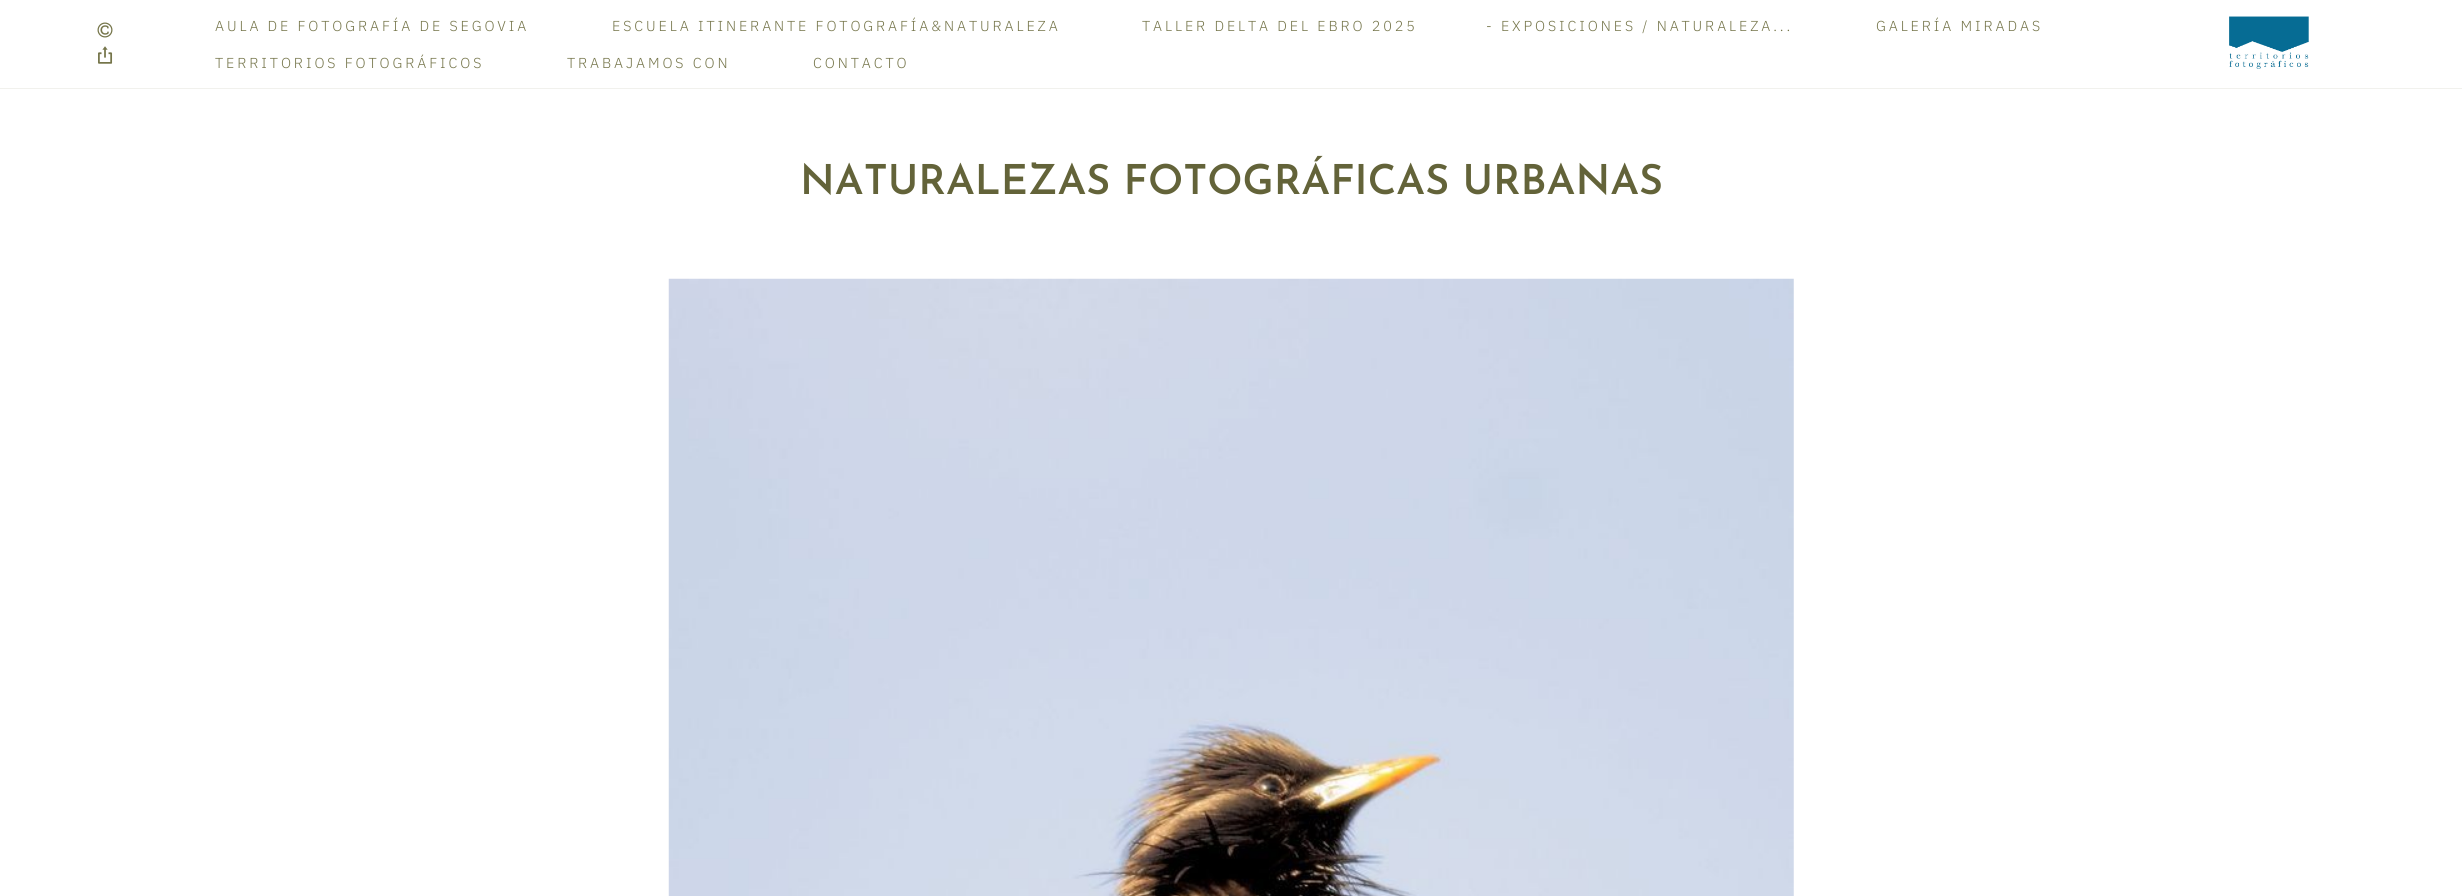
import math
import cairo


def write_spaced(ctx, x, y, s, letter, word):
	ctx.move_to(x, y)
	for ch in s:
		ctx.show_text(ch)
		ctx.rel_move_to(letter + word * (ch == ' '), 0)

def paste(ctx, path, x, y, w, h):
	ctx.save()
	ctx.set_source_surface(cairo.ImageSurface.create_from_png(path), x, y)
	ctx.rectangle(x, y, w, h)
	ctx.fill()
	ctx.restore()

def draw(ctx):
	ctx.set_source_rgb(1, 1, 1)
	ctx.paint()
	ctx.set_source_rgb(0.945, 0.945, 0.929)
	ctx.rectangle(0, 88, 2462, 1)
	ctx.fill()
	paste(ctx, 'media/1.png', 97, 22, 16, 16)
	paste(ctx, 'media/2.png', 98, 46, 15, 18)
	ctx.select_font_face('IBM Plex Sans Light')
	ctx.set_font_size(14.4)
	ctx.set_source_rgb(0.459, 0.459, 0.29)
	for x, y, s in [
		(215, 31, 'AULA DE FOTOGRAFÍA DE SEGOVIA'),
		(612, 31, 'ESCUELA ITINERANTE FOTOGRAFÍA&NATURALEZA'),
		(1142, 31, 'TALLER DELTA DEL EBRO 2025'),
		(1486, 31, '- EXPOSICIONES / NATURALEZA...'),
		(1876, 31, 'GALERÍA MIRADAS'),
		(215, 68, 'TERRITORIOS FOTOGRÁFICOS'),
		(567, 68, 'TRABAJAMOS CON'),
		(813, 68, 'CONTACTO'),
	]:
		write_spaced(ctx, x, y, s, 2.9, 0)
	paste(ctx, 'media/3.png', 2229, 16, 80, 53)
	ctx.select_font_face('Josefin Sans SemiBold')
	ctx.set_font_size(41.25)
	ctx.set_source_rgb(0.388, 0.388, 0.224)
	ctx.move_to(800, 194)
	ctx.show_text('NATURALEZAS FOTOGRÁFICAS URBANAS')
	paste(ctx, 'media/4.png', 668, 278, 1126, 618)


surface = cairo.ImageSurface(cairo.FORMAT_RGB24, 2462, 896)
ctx = cairo.Context(surface)
options = cairo.FontOptions()
options.set_hint_metrics(cairo.HINT_METRICS_OFF)
options.set_hint_style(cairo.HINT_STYLE_NONE)
ctx.set_font_options(options)
ctx.set_miter_limit(4)
draw(ctx)
surface.write_to_png('image.png')
